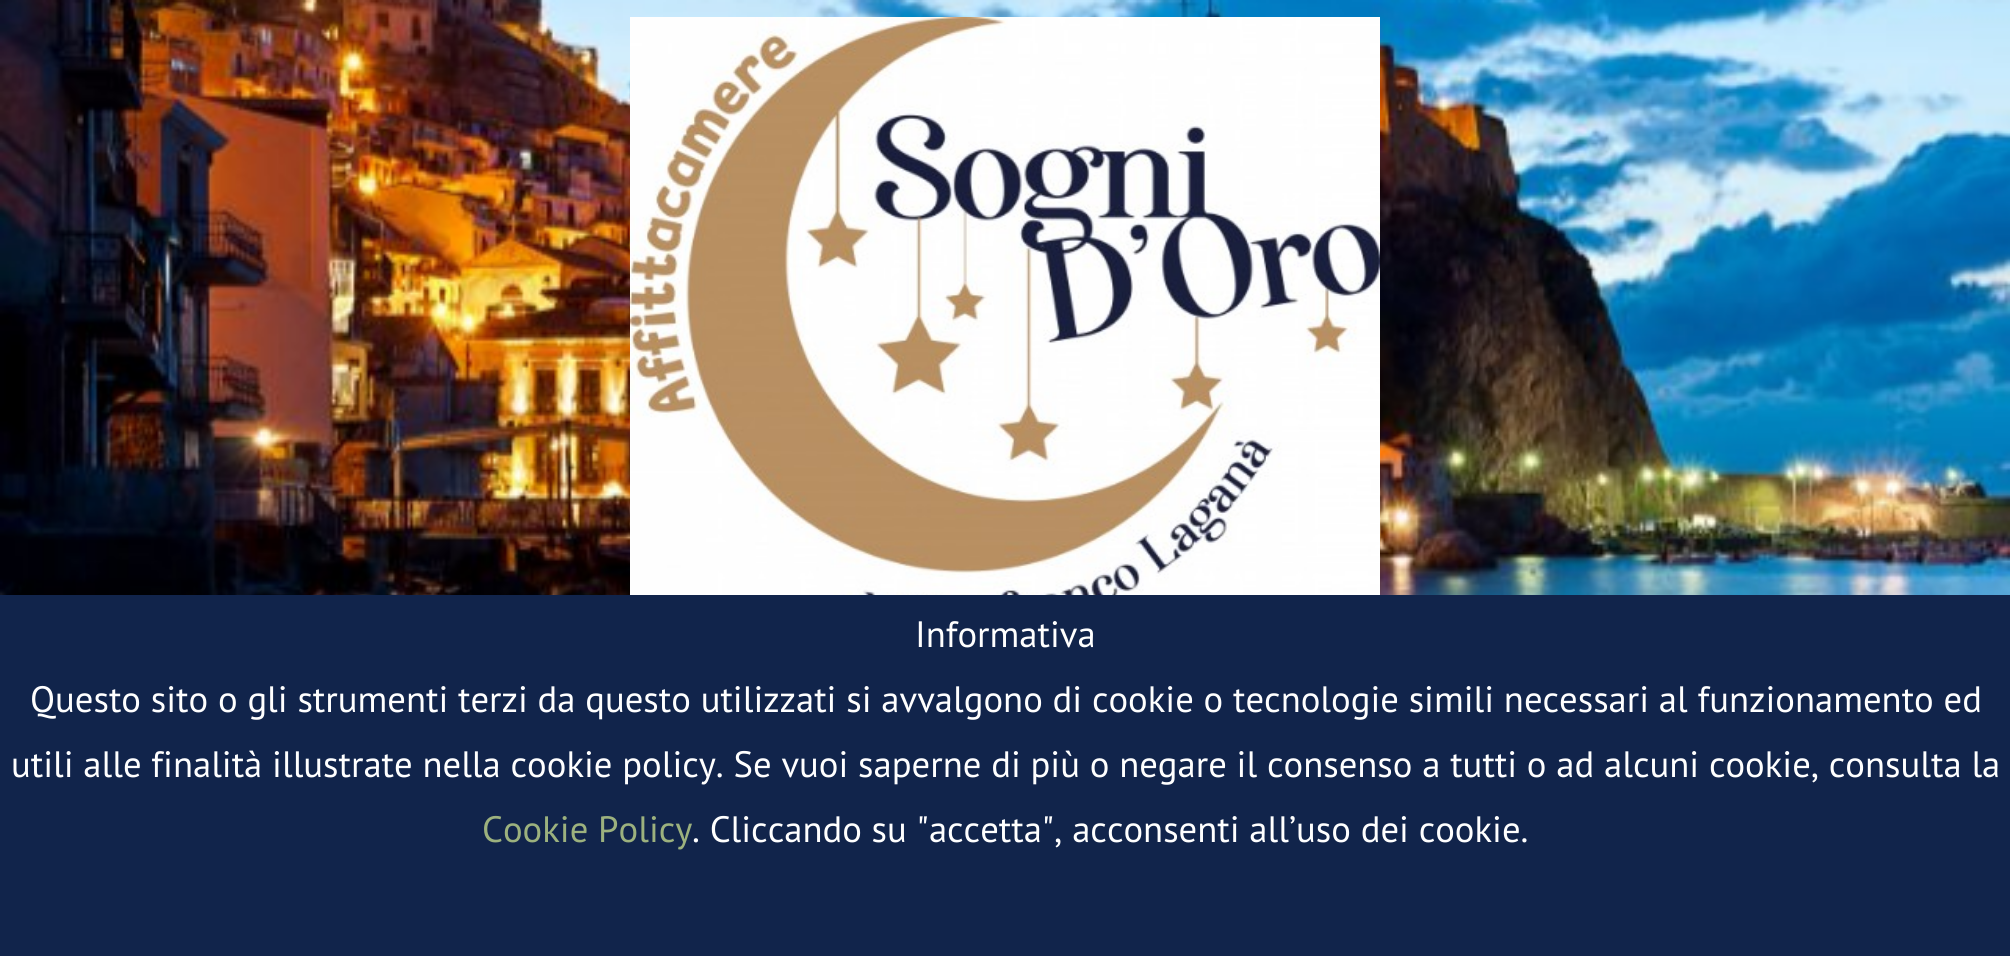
import math
import cairo


def paste(ctx, path, x, y, w, h):
	ctx.save()
	ctx.set_source_surface(cairo.ImageSurface.create_from_png(path), x, y)
	ctx.rectangle(x, y, w, h)
	ctx.fill()
	ctx.restore()

def draw(ctx):
	ctx.set_source_rgb(1, 1, 1)
	ctx.paint()
	paste(ctx, 'media/1.png', 0, 0, 2010, 595)
	paste(ctx, 'media/2.png', 630, 17, 750, 578)
	ctx.set_source_rgb(0.067, 0.141, 0.294)
	ctx.rectangle(0, 595, 2010, 361)
	ctx.fill()
	ctx.select_font_face('PT Sans')
	ctx.set_font_size(36.67)
	ctx.set_source_rgb(1, 1, 1)
	for x, y, s in [
		(915, 647, 'Informativa'),
		(30, 712, 'Questo sito o gli strumenti terzi da questo utilizzati si avvalgono di cookie o tecnologie simili necessari al funzionamento ed'),
		(11, 777, 'utili alle finalità illustrate nella cookie policy. Se vuoi saperne di più o negare il consenso a tutti o ad alcuni cookie, consulta la'),
	]:
		ctx.move_to(x, y)
		ctx.show_text(s)
	ctx.set_source_rgb(0.612, 0.694, 0.494)
	ctx.move_to(482, 842)
	ctx.show_text('Cookie Policy')
	ctx.set_source_rgb(1, 1, 1)
	ctx.move_to(692, 842)
	ctx.show_text('. Cliccando su "accetta", acconsenti all’uso dei cookie.')


surface = cairo.ImageSurface(cairo.FORMAT_RGB24, 2010, 956)
ctx = cairo.Context(surface)
options = cairo.FontOptions()
options.set_hint_metrics(cairo.HINT_METRICS_OFF)
options.set_hint_style(cairo.HINT_STYLE_NONE)
ctx.set_font_options(options)
ctx.set_miter_limit(4)
draw(ctx)
surface.write_to_png('image.png')
